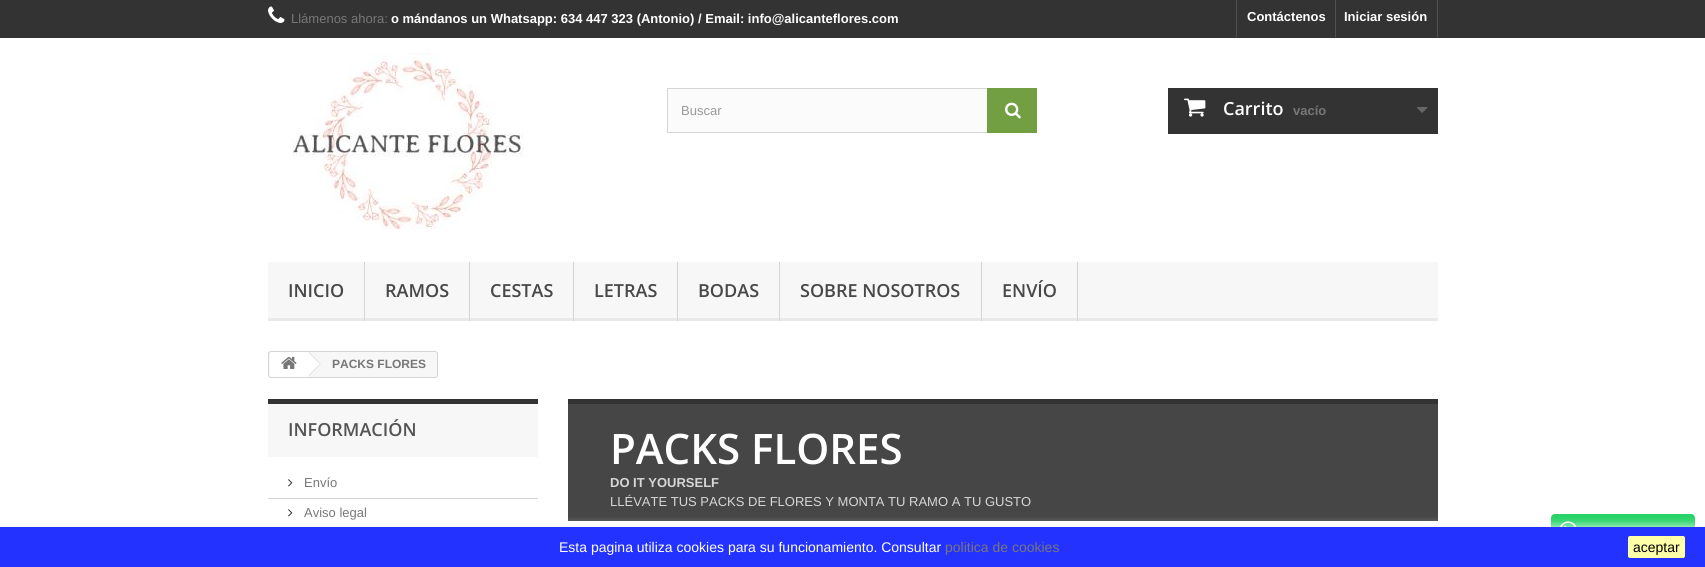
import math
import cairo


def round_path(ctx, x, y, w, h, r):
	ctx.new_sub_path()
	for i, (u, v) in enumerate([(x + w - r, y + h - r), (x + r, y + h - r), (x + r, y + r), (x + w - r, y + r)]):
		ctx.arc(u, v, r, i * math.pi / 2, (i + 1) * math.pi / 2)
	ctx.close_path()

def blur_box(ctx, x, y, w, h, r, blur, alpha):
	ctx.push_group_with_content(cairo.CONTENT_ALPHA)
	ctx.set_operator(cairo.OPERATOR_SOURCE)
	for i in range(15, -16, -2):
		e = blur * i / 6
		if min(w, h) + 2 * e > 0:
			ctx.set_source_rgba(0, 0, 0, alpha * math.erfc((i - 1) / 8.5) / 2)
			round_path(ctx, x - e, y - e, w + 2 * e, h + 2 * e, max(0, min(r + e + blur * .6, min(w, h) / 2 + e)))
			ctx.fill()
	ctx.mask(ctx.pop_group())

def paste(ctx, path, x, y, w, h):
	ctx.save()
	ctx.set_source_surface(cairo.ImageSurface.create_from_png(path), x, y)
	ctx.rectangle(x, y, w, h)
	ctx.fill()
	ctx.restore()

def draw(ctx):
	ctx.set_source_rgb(1, 1, 1)
	ctx.paint()
	ctx.set_source_rgb(0.2, 0.2, 0.2)
	ctx.rectangle(0, 0, 1705, 38)
	ctx.fill()
	paste(ctx, 'media/1.png', 268, 6, 17, 17)
	ctx.select_font_face('Liberation Sans')
	ctx.set_font_size(13)
	ctx.set_source_rgb(0.467, 0.467, 0.467)
	ctx.move_to(291, 23)
	ctx.show_text('Llámenos ahora:')
	ctx.select_font_face('Liberation Sans', cairo.FONT_SLANT_NORMAL, cairo.FONT_WEIGHT_BOLD)
	ctx.set_source_rgb(1, 1, 1)
	ctx.move_to(391, 23)
	ctx.show_text('o mándanos un Whatsapp: 634 447 323 (Antonio) / Email: info@alicanteflores.com')
	ctx.set_source_rgb(0.318, 0.318, 0.318)
	ctx.rectangle(1236, 0, 1, 37)
	ctx.fill()
	ctx.set_source_rgb(1, 1, 1)
	ctx.move_to(1247, 21)
	ctx.show_text('Contáctenos')
	ctx.set_source_rgb(0.318, 0.318, 0.318)
	ctx.rectangle(1437, 0, 1, 37)
	ctx.fill()
	ctx.rectangle(1335, 0, 1, 37)
	ctx.fill()
	ctx.set_source_rgb(1, 1, 1)
	ctx.move_to(1344, 21)
	ctx.show_text('Iniciar sesión')
	paste(ctx, 'media/2.png', 292, 53, 232, 177)
	ctx.set_source_rgb(0.984, 0.984, 0.984)
	ctx.rectangle(668, 89, 319, 43)
	ctx.fill()
	ctx.rectangle(667.5, 88.5, 369, 44)
	ctx.set_source_rgb(0.839, 0.831, 0.831)
	ctx.set_line_width(1)
	ctx.stroke()
	ctx.select_font_face('Liberation Sans')
	ctx.set_source_rgb(0.6, 0.6, 0.6)
	ctx.move_to(681, 115)
	ctx.show_text('Buscar')
	ctx.set_source_rgb(0.443, 0.624, 0.255)
	ctx.rectangle(987, 88, 50, 45)
	ctx.fill()
	paste(ctx, 'media/3.png', 1005, 102, 16, 17)
	ctx.set_source_rgb(0.2, 0.2, 0.2)
	ctx.rectangle(1168, 88, 270, 46)
	ctx.fill()
	paste(ctx, 'media/4.png', 1184, 98, 22, 19)
	ctx.select_font_face('Open Sans SemiBold')
	ctx.set_font_size(18)
	ctx.set_source_rgb(1, 1, 1)
	ctx.move_to(1223, 115)
	ctx.show_text('Carrito')
	ctx.select_font_face('Liberation Sans', cairo.FONT_SLANT_NORMAL, cairo.FONT_WEIGHT_BOLD)
	ctx.set_font_size(13)
	ctx.set_source_rgb(0.467, 0.467, 0.467)
	ctx.move_to(1293, 115)
	ctx.show_text('vacío')
	paste(ctx, 'media/5.png', 1417, 107, 11, 6)
	ctx.set_source_rgb(0.965, 0.965, 0.965)
	ctx.rectangle(268, 262, 1170, 56)
	ctx.fill()
	ctx.set_source_rgb(0.914, 0.914, 0.914)
	ctx.rectangle(268, 318, 1170, 3)
	ctx.fill()
	ctx.set_source_rgb(0.839, 0.831, 0.831)
	ctx.rectangle(364, 262, 1, 59)
	ctx.fill()
	ctx.select_font_face('Open Sans SemiBold')
	ctx.set_font_size(18)
	ctx.set_source_rgb(0.282, 0.282, 0.282)
	ctx.move_to(288, 297)
	ctx.show_text('INICIO')
	ctx.set_source_rgb(0.839, 0.831, 0.831)
	ctx.rectangle(469, 262, 1, 59)
	ctx.fill()
	ctx.set_source_rgb(0.282, 0.282, 0.282)
	ctx.move_to(385, 297)
	ctx.show_text('RAMOS')
	ctx.set_source_rgb(0.839, 0.831, 0.831)
	ctx.rectangle(573, 262, 1, 59)
	ctx.fill()
	ctx.set_source_rgb(0.282, 0.282, 0.282)
	ctx.move_to(490, 297)
	ctx.show_text('CESTAS')
	ctx.set_source_rgb(0.839, 0.831, 0.831)
	ctx.rectangle(677, 262, 1, 59)
	ctx.fill()
	ctx.set_source_rgb(0.282, 0.282, 0.282)
	ctx.move_to(594, 297)
	ctx.show_text('LETRAS')
	ctx.set_source_rgb(0.839, 0.831, 0.831)
	ctx.rectangle(779, 262, 1, 59)
	ctx.fill()
	ctx.set_source_rgb(0.282, 0.282, 0.282)
	ctx.move_to(698, 297)
	ctx.show_text('BODAS')
	ctx.set_source_rgb(0.839, 0.831, 0.831)
	ctx.rectangle(981, 262, 1, 59)
	ctx.fill()
	ctx.set_source_rgb(0.282, 0.282, 0.282)
	ctx.move_to(800, 297)
	ctx.show_text('SOBRE NOSOTROS')
	ctx.set_source_rgb(0.839, 0.831, 0.831)
	ctx.rectangle(1077, 262, 1, 59)
	ctx.fill()
	ctx.set_source_rgb(0.282, 0.282, 0.282)
	ctx.move_to(1002, 297)
	ctx.show_text('ENVÍO')
	ctx.set_source_rgb(0.145, 0.827, 0.4)
	round_path(ctx, 1551, 514, 144, 33, 4)
	ctx.fill()
	paste(ctx, 'media/6.png', 1560, 521, 17, 6)
	ctx.set_source_rgb(0.965, 0.965, 0.965)
	round_path(ctx, 268.5, 351.5, 169, 26, 2.5)
	ctx.fill_preserve()
	ctx.set_source_rgb(0.839, 0.831, 0.831)
	ctx.stroke()
	ctx.set_source_rgb(1, 1, 1)
	ctx.new_path()
	ctx.move_to(273, 352)
	ctx.line_to(308, 352)
	ctx.line_to(308, 377)
	ctx.line_to(273, 377)
	ctx.curve_to(271.5, 377, 270, 375.5, 270, 374)
	ctx.line_to(270, 355)
	ctx.curve_to(270, 353.5, 271.5, 352, 273, 352)
	ctx.close_path()
	ctx.fill()
	ctx.new_path()
	ctx.move_to(310, 352.5)
	ctx.line_to(320, 362.5)
	ctx.curve_to(320.5, 363.5, 320.5, 364.5, 320, 365.5)
	ctx.line_to(310, 375.5)
	ctx.curve_to(309, 376, 308, 376, 307, 375.5)
	ctx.line_to(297, 365.5)
	ctx.curve_to(296.5, 364.5, 296.5, 363.5, 297, 362.5)
	ctx.line_to(307, 352.5)
	ctx.curve_to(308, 352, 309, 352, 310, 352.5)
	ctx.close_path()
	ctx.fill()
	paste(ctx, 'media/7.png', 281, 356, 16, 13)
	ctx.set_source_rgb(0.839, 0.831, 0.831)
	ctx.new_path()
	ctx.move_to(309, 352)
	ctx.line_to(320.5, 363.5)
	ctx.line_to(320, 364)
	ctx.line_to(308.5, 352.5)
	ctx.close_path()
	ctx.move_to(320, 364)
	ctx.line_to(320.5, 364.5)
	ctx.line_to(309, 376)
	ctx.line_to(308.5, 375.5)
	ctx.close_path()
	ctx.fill()
	ctx.select_font_face('Liberation Sans', cairo.FONT_SLANT_NORMAL, cairo.FONT_WEIGHT_BOLD)
	ctx.set_font_size(12)
	ctx.set_source_rgb(0.467, 0.467, 0.467)
	ctx.move_to(332, 368)
	ctx.show_text('PACKS FLORES')
	ctx.set_source_rgb(0.965, 0.965, 0.965)
	ctx.rectangle(268, 404, 270, 53)
	ctx.fill()
	ctx.set_source_rgb(0.2, 0.2, 0.2)
	ctx.rectangle(268, 399, 270, 5)
	ctx.fill()
	ctx.select_font_face('Open Sans SemiBold')
	ctx.set_font_size(18)
	ctx.set_source_rgb(0.333, 0.329, 0.329)
	ctx.move_to(288, 436)
	ctx.show_text('INFORMACIÓN')
	paste(ctx, 'media/8.png', 288, 479, 5, 8)
	ctx.select_font_face('Liberation Sans')
	ctx.set_font_size(13)
	ctx.set_source_rgb(0.467, 0.467, 0.467)
	ctx.move_to(304, 487)
	ctx.show_text('Envío')
	ctx.set_source_rgb(0.839, 0.831, 0.831)
	ctx.rectangle(268, 498, 270, 1)
	ctx.fill()
	paste(ctx, 'media/8.png', 288, 509, 5, 8)
	ctx.set_source_rgb(0.467, 0.467, 0.467)
	ctx.move_to(304, 517)
	ctx.show_text('Aviso legal')
	ctx.set_source_rgb(0.2, 0.2, 0.2)
	ctx.rectangle(568, 399, 870, 5)
	ctx.fill()
	ctx.set_source_rgb(0.275, 0.275, 0.275)
	ctx.rectangle(568, 404, 870, 117)
	ctx.fill()
	ctx.select_font_face('Open Sans SemiBold')
	ctx.set_font_size(42)
	ctx.set_source_rgb(1, 1, 1)
	ctx.move_to(610, 464)
	ctx.show_text('PACKS FLORES')
	ctx.select_font_face('Liberation Sans', cairo.FONT_SLANT_NORMAL, cairo.FONT_WEIGHT_BOLD)
	ctx.set_font_size(13)
	ctx.set_source_rgb(0.843, 0.843, 0.843)
	ctx.move_to(610, 487)
	ctx.show_text('DO IT YOURSELF')
	ctx.select_font_face('Liberation Sans')
	ctx.move_to(610, 506)
	ctx.show_text('LLÉVATE TUS PACKS DE FLORES Y MONTA TU RAMO A TU GUSTO')
	ctx.set_source_rgb(1, 1, 1)
	blur_box(ctx, 0, 527, 1705, 40, 0, 5, 1)
	ctx.set_source_rgb(0.141, 0.196, 1)
	ctx.rectangle(0, 527, 1705, 40)
	ctx.fill()
	ctx.set_font_size(14)
	ctx.set_source_rgb(1, 1, 1)
	ctx.move_to(559, 552)
	ctx.show_text('Esta pagina utiliza cookies para su funcionamiento. Consultar')
	ctx.set_source_rgb(0.467, 0.467, 0.467)
	ctx.move_to(945, 552)
	ctx.show_text('politica de cookies')
	ctx.set_source_rgb(1, 1, 0.659)
	round_path(ctx, 1628, 536, 57, 22, 2)
	ctx.fill()
	ctx.set_source_rgb(0, 0, 0)
	ctx.move_to(1633, 552)
	ctx.show_text('aceptar')


surface = cairo.ImageSurface(cairo.FORMAT_RGB24, 1705, 567)
ctx = cairo.Context(surface)
options = cairo.FontOptions()
options.set_hint_metrics(cairo.HINT_METRICS_OFF)
options.set_hint_style(cairo.HINT_STYLE_NONE)
ctx.set_font_options(options)
ctx.set_miter_limit(4)
draw(ctx)
surface.write_to_png('image.png')
